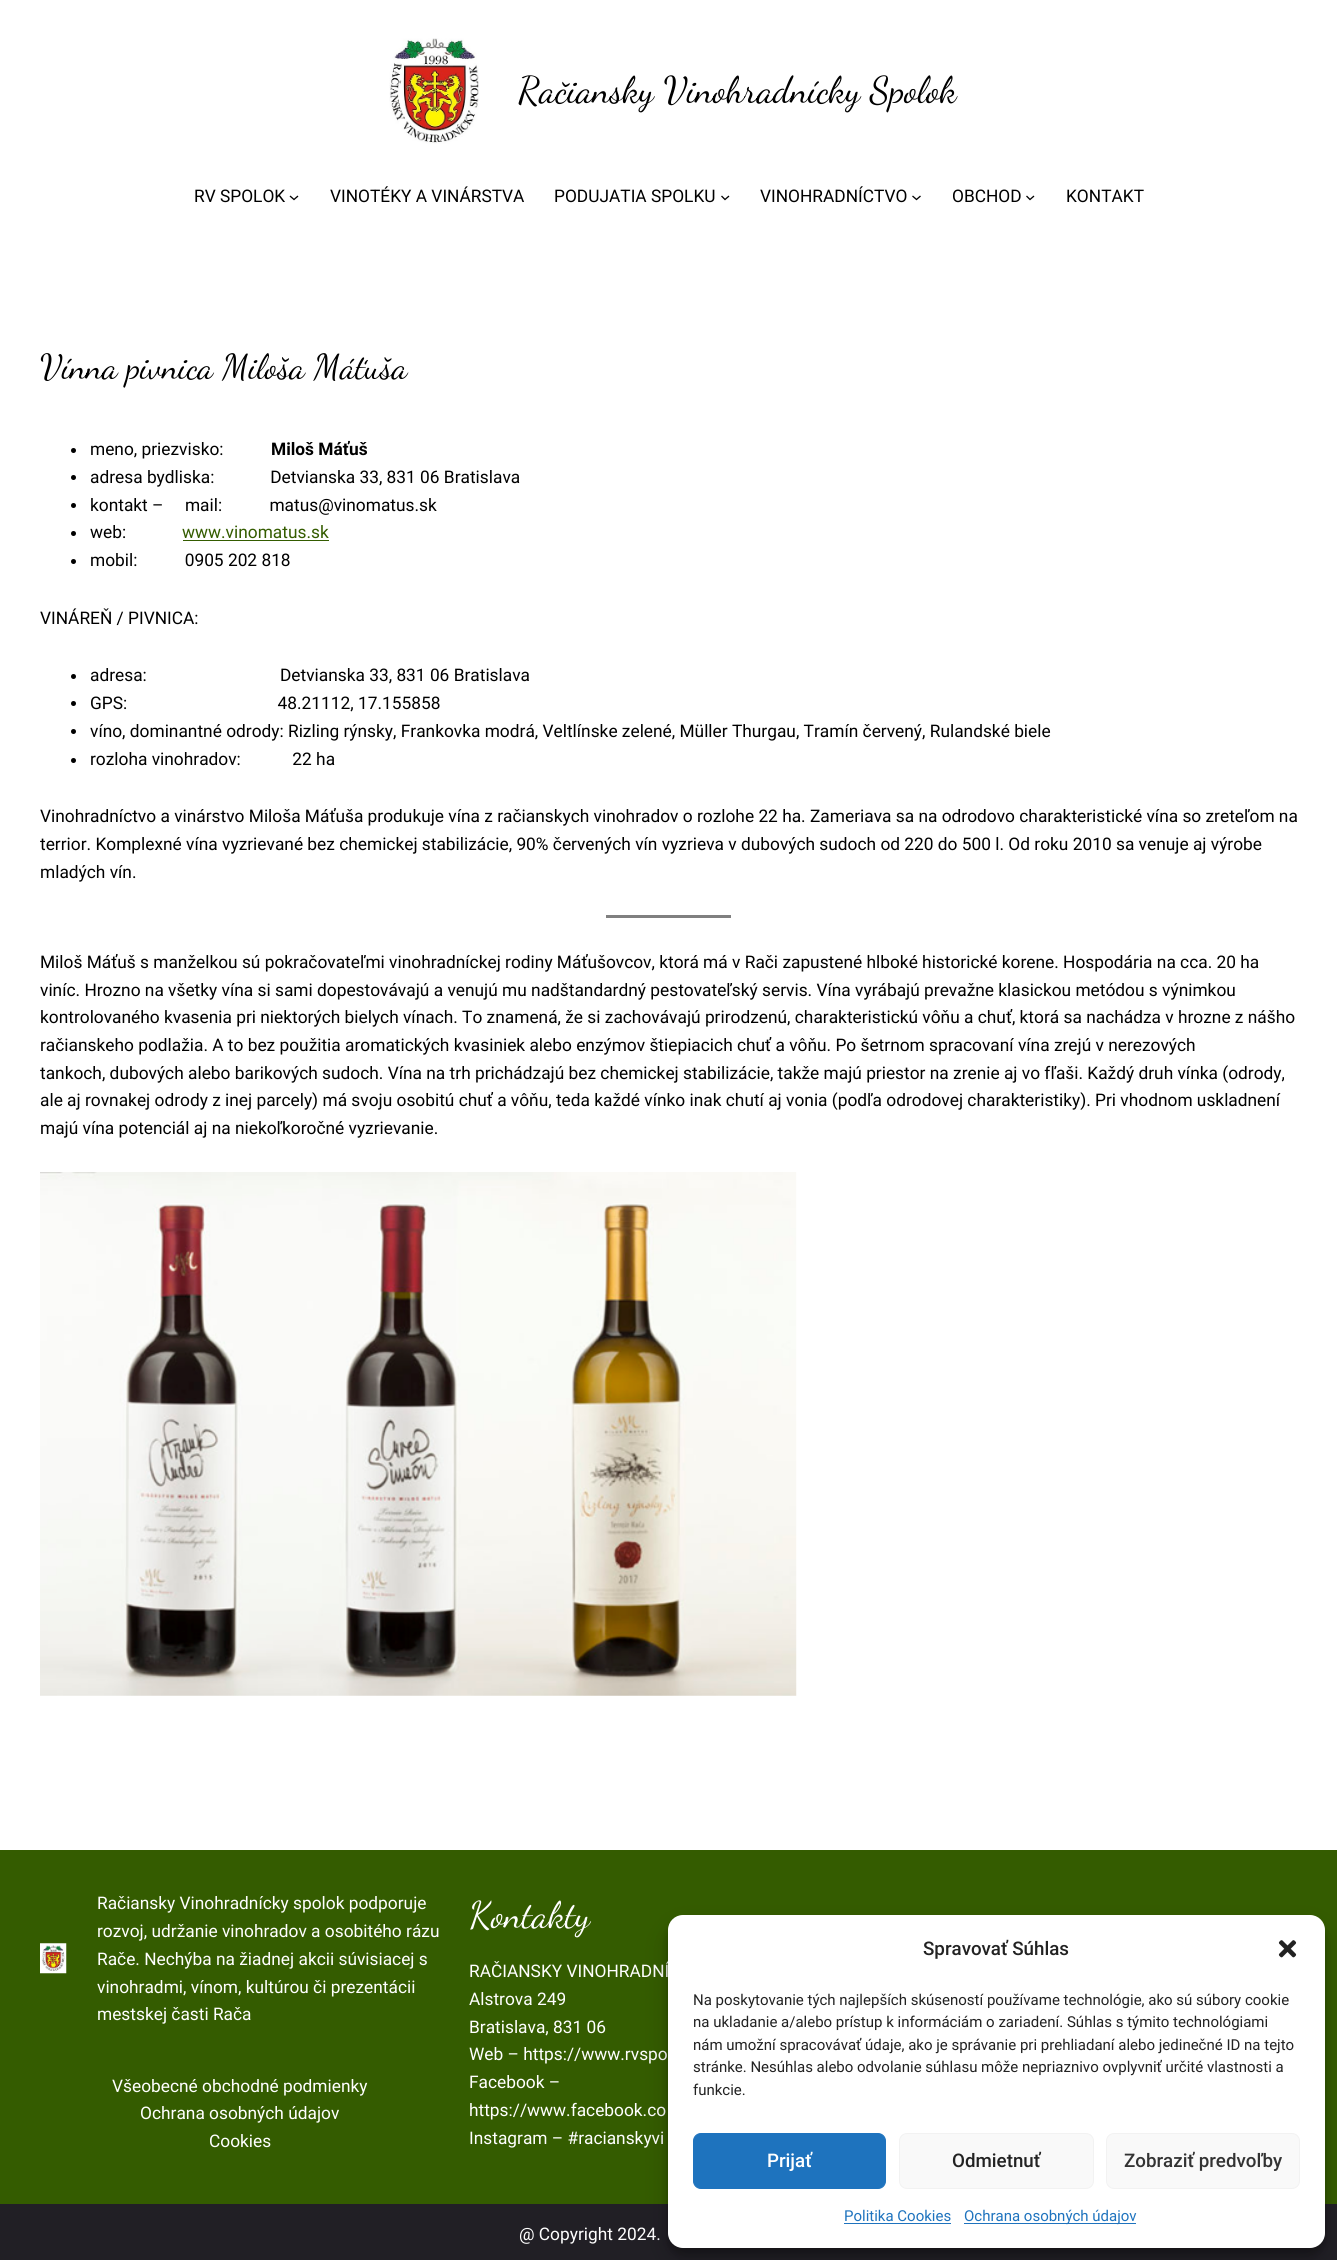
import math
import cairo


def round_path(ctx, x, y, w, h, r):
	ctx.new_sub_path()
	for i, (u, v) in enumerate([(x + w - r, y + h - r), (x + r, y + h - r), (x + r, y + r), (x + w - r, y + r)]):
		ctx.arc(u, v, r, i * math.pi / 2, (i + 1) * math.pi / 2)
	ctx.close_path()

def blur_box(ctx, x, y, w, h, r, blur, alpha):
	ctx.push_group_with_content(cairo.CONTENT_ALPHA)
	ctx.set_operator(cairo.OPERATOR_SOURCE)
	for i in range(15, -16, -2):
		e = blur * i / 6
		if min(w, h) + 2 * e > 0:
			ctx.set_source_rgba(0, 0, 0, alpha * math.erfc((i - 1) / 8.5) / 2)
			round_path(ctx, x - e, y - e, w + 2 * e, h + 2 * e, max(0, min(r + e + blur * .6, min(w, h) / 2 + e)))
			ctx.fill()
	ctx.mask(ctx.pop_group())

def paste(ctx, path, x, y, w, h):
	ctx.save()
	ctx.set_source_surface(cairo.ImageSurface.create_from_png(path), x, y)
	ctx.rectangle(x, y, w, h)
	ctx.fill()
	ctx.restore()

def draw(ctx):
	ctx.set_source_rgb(1, 1, 1)
	ctx.paint()
	paste(ctx, 'media/1.png', 389, 38, 90, 106)
	ctx.select_font_face('Dancing Script')
	ctx.set_font_size(37.1)
	ctx.set_source_rgb(0, 0, 0)
	ctx.move_to(518, 102)
	ctx.show_text('Račiansky Vinohradnícky Spolok')
	ctx.select_font_face('Roboto')
	ctx.set_font_size(17.32)
	ctx.move_to(194, 202)
	ctx.show_text('RV SPOLOK')
	ctx.new_path()
	ctx.move_to(290, 196)
	ctx.line_to(294, 199.5)
	ctx.line_to(298, 196)
	ctx.set_line_width(1.3)
	ctx.stroke()
	ctx.move_to(330, 202)
	ctx.show_text('VINOTÉKY A VINÁRSTVA')
	ctx.move_to(554, 202)
	ctx.show_text('PODUJATIA SPOLKU')
	ctx.new_path()
	ctx.move_to(721.5, 196)
	ctx.line_to(725, 199.5)
	ctx.line_to(729, 196)
	ctx.stroke()
	ctx.move_to(760, 202)
	ctx.show_text('VINOHRADNÍCTVO')
	ctx.new_path()
	ctx.move_to(912.5, 196)
	ctx.line_to(916.5, 199.5)
	ctx.line_to(920.5, 196)
	ctx.stroke()
	ctx.move_to(952, 202)
	ctx.show_text('OBCHOD')
	ctx.new_path()
	ctx.move_to(1026.5, 196)
	ctx.line_to(1030, 199.5)
	ctx.line_to(1034, 196)
	ctx.stroke()
	ctx.move_to(1066, 202)
	ctx.show_text('KONTAKT')
	ctx.select_font_face('Dancing Script')
	ctx.set_font_size(34.6)
	ctx.move_to(40, 378)
	ctx.show_text('Vínna pivnica Miloša Máťuša')
	ctx.new_path()
	ctx.arc(73.5, 450.5, 2.5, 0, 2 * math.pi)
	ctx.fill()
	ctx.select_font_face('Roboto')
	ctx.set_font_size(17.32)
	ctx.move_to(90, 455)
	ctx.show_text('meno, priezvisko:')
	ctx.select_font_face('Roboto', cairo.FONT_SLANT_NORMAL, cairo.FONT_WEIGHT_BOLD)
	ctx.move_to(271, 455)
	ctx.show_text('Miloš Máťuš')
	ctx.new_path()
	ctx.arc(73.5, 477.5, 2.5, 0, 2 * math.pi)
	ctx.fill()
	ctx.select_font_face('Roboto')
	ctx.move_to(90, 483)
	ctx.show_text('adresa bydliska:             Detvianska 33, 831 06 Bratislava')
	ctx.new_path()
	ctx.arc(73.5, 505.5, 2.5, 0, 2 * math.pi)
	ctx.fill()
	ctx.move_to(90, 511)
	ctx.show_text('kontakt –     mail:           matus@vinomatus.sk')
	ctx.new_path()
	ctx.arc(73.5, 533.5, 2.5, 0, 2 * math.pi)
	ctx.fill()
	ctx.move_to(90, 538)
	ctx.show_text('web:')
	ctx.set_source_rgb(0.204, 0.361, 0)
	ctx.move_to(182, 538)
	ctx.show_text('www.vinomatus.sk')
	ctx.rectangle(183, 540, 146, 1)
	ctx.fill()
	ctx.set_source_rgb(0, 0, 0)
	ctx.arc(73.5, 561.5, 2.5, 0, 2 * math.pi)
	ctx.fill()
	ctx.move_to(90, 566)
	ctx.show_text('mobil:           0905 202 818')
	ctx.move_to(40, 624)
	ctx.show_text('VINÁREŇ / PIVNICA:')
	ctx.new_path()
	ctx.arc(73.5, 676.5, 2.5, 0, 2 * math.pi)
	ctx.fill()
	ctx.move_to(90, 681)
	ctx.show_text('adresa:                               Detvianska 33, 831 06 Bratislava')
	ctx.new_path()
	ctx.arc(73.5, 703.5, 2.5, 0, 2 * math.pi)
	ctx.fill()
	ctx.move_to(90, 709)
	ctx.show_text('GPS:                                   48.21112, 17.155858')
	ctx.new_path()
	ctx.arc(73.5, 731.5, 2.5, 0, 2 * math.pi)
	ctx.fill()
	ctx.move_to(90, 737)
	ctx.show_text('víno, dominantné odrody: Rizling rýnsky, Frankovka modrá, Veltlínske zelené, Müller Thurgau, Tramín červený, Rulandské biele')
	ctx.new_path()
	ctx.arc(73.5, 760.5, 2.5, 0, 2 * math.pi)
	ctx.fill()
	for x, y, s in [
		(90, 765, 'rozloha vinohradov:            22 ha'),
		(40, 822, 'Vinohradníctvo a vinárstvo Miloša Máťuša produkuje vína z račianskych vinohradov o rozlohe 22 ha. Zameriava sa na odrodovo charakteristické vína so zreteľom na'),
		(40, 850, 'terrior. Komplexné vína vyzrievané bez chemickej stabilizácie, 90% červených vín vyzrieva v dubových sudoch od 220 do 500 l. Od roku 2010 sa venuje aj výrobe'),
		(40, 878, 'mladých vín.'),
	]:
		ctx.move_to(x, y)
		ctx.show_text(s)
	ctx.set_source_rgb(0.502, 0.502, 0.502)
	ctx.rectangle(606, 915, 125, 3)
	ctx.fill()
	ctx.set_source_rgb(0, 0, 0)
	for x, y, s in [
		(40, 968, 'Miloš Máťuš s manželkou sú pokračovateľmi vinohradníckej rodiny Máťušovcov, ktorá má v Rači zapustené hlboké historické korene. Hospodária na cca. 20 ha'),
		(40, 996, 'viníc. Hrozno na všetky vína si sami dopestovávajú a venujú mu nadštandardný pestovateľský servis. Vína vyrábajú prevažne klasickou metódou s výnimkou'),
		(40, 1023, 'kontrolovaného kvasenia pri niektorých bielych vínach. To znamená, že si zachovávajú prirodzenú, charakteristickú vôňu a chuť, ktorá sa nachádza v hrozne z nášho'),
		(40, 1051, 'račianskeho podlažia. A to bez použitia aromatických kvasiniek alebo enzýmov štiepiacich chuť a vôňu. Po šetrnom spracovaní vína zrejú v nerezových'),
		(40, 1079, 'tankoch, dubových alebo barikových sudoch. Vína na trh prichádzajú bez chemickej stabilizácie, takže majú priestor na zrenie aj vo fľaši. Každý druh vínka (odrody,'),
		(40, 1106, 'ale aj rovnakej odrody z inej parcely) má svoju osobitú chuť a vôňu, teda každé vínko inak chutí aj vonia (podľa odrodovej charakteristiky). Pri vhodnom uskladnení'),
		(40, 1134, 'majú vína potenciál aj na niekoľkoročné vyzrievanie.'),
	]:
		ctx.move_to(x, y)
		ctx.show_text(s)
	paste(ctx, 'media/2.png', 40, 1172, 757, 524)
	ctx.set_source_rgb(0.204, 0.361, 0)
	ctx.rectangle(0, 1850, 1337, 354)
	ctx.fill()
	paste(ctx, 'media/3.png', 40, 1943, 27, 31)
	ctx.set_source_rgb(1, 1, 1)
	for x, y, s in [
		(97, 1909, 'Račiansky Vinohradnícky spolok podporuje'),
		(97, 1937, 'rozvoj, udržanie vinohradov a osobitého rázu'),
		(97, 1965, 'Rače. Nechýba na žiadnej akcii súvisiacej s'),
		(97, 1993, 'vinohradmi, vínom, kultúrou či prezentácii'),
		(97, 2020, 'mestskej časti Rača'),
		(112, 2092, 'Všeobecné obchodné podmienky'),
		(140, 2119, 'Ochrana osobných údajov'),
		(209, 2147, 'Cookies'),
	]:
		ctx.move_to(x, y)
		ctx.show_text(s)
	ctx.select_font_face('Dancing Script')
	ctx.set_font_size(37.1)
	ctx.move_to(469, 1927)
	ctx.show_text('Kontakty')
	ctx.select_font_face('Roboto')
	ctx.set_font_size(17.32)
	for x, y, s in [
		(469, 1977, 'RAČIANSKY VINOHRADNÍ'),
		(469, 2005, 'Alstrova 249'),
		(469, 2033, 'Bratislava, 831 06'),
		(469, 2060, 'Web – https://www.rvspo'),
		(469, 2088, 'Facebook –'),
		(469, 2116, 'https://www.facebook.co'),
		(469, 2144, 'Instagram – #racianskyvi'),
	]:
		ctx.move_to(x, y)
		ctx.show_text(s)
	ctx.set_source_rgb(0.129, 0.122, 0.145)
	ctx.rectangle(0, 2204, 1337, 56)
	ctx.fill()
	ctx.set_source_rgb(1, 1, 1)
	ctx.move_to(519, 2240)
	ctx.show_text('@ Copyright 2024.')
	ctx.set_source_rgb(0, 0, 0)
	blur_box(ctx, 668, 1923, 657, 332, 15, 4, 0.23)
	blur_box(ctx, 668, 1928, 657, 332, 15, 12.5, 0.19)
	ctx.set_source_rgb(1, 1, 1)
	round_path(ctx, 668, 1915, 657, 333, 15)
	ctx.fill()
	ctx.select_font_face('Roboto Medium')
	ctx.set_font_size(18.75)
	ctx.set_source_rgb(0.133, 0.133, 0.133)
	ctx.move_to(923, 1955)
	ctx.show_text('Spravovať Súhlas')
	paste(ctx, 'media/4.png', 1278, 1940, 19, 18)
	ctx.select_font_face('Roboto')
	ctx.set_font_size(15)
	for x, y, s in [
		(693, 2005, 'Na poskytovanie tých najlepších skúseností používame technológie, ako sú súbory cookie'),
		(693, 2027, 'na ukladanie a/alebo prístup k informáciám o zariadení. Súhlas s týmito technológiami'),
		(693, 2050, 'nám umožní spracovávať údaje, ako je správanie pri prehliadaní alebo jedinečné ID na tejto'),
		(693, 2072, 'stránke. Nesúhlas alebo odvolanie súhlasu môže nepriaznivo ovplyvniť určité vlastnosti a'),
		(693, 2095, 'funkcie.'),
	]:
		ctx.move_to(x, y)
		ctx.show_text(s)
	ctx.set_source_rgb(0.118, 0.451, 0.745)
	round_path(ctx, 693.5, 2133.5, 192, 55, 7.5)
	ctx.fill_preserve()
	ctx.set_line_width(1)
	ctx.stroke()
	ctx.select_font_face('Roboto Medium')
	ctx.set_font_size(18.75)
	ctx.set_source_rgb(1, 1, 1)
	ctx.move_to(767, 2167)
	ctx.show_text('Prijať')
	ctx.set_source_rgb(0.976, 0.976, 0.976)
	round_path(ctx, 899.5, 2133.5, 194, 55, 7.5)
	ctx.fill_preserve()
	ctx.set_source_rgb(0.949, 0.949, 0.949)
	ctx.stroke()
	ctx.set_source_rgb(0.133, 0.133, 0.133)
	ctx.move_to(952, 2167)
	ctx.show_text('Odmietnuť')
	ctx.set_source_rgb(0.976, 0.976, 0.976)
	round_path(ctx, 1106.5, 2133.5, 193, 55, 7.5)
	ctx.fill_preserve()
	ctx.set_source_rgb(0.949, 0.949, 0.949)
	ctx.stroke()
	ctx.set_source_rgb(0.2, 0.2, 0.2)
	ctx.move_to(1124, 2167)
	ctx.show_text('Zobraziť predvoľby')
	ctx.select_font_face('Roboto')
	ctx.set_font_size(15)
	ctx.set_source_rgb(0.118, 0.451, 0.745)
	ctx.move_to(844, 2221)
	ctx.show_text('Politika Cookies')
	ctx.rectangle(844, 2223, 107, 1)
	ctx.fill()
	ctx.rectangle(964, 2223, 172, 1)
	ctx.fill()
	ctx.move_to(964, 2221)
	ctx.show_text('Ochrana osobných údajov')


surface = cairo.ImageSurface(cairo.FORMAT_RGB24, 1337, 2260)
ctx = cairo.Context(surface)
options = cairo.FontOptions()
options.set_hint_metrics(cairo.HINT_METRICS_OFF)
options.set_hint_style(cairo.HINT_STYLE_NONE)
ctx.set_font_options(options)
ctx.set_miter_limit(4)
draw(ctx)
surface.write_to_png('image.png')
